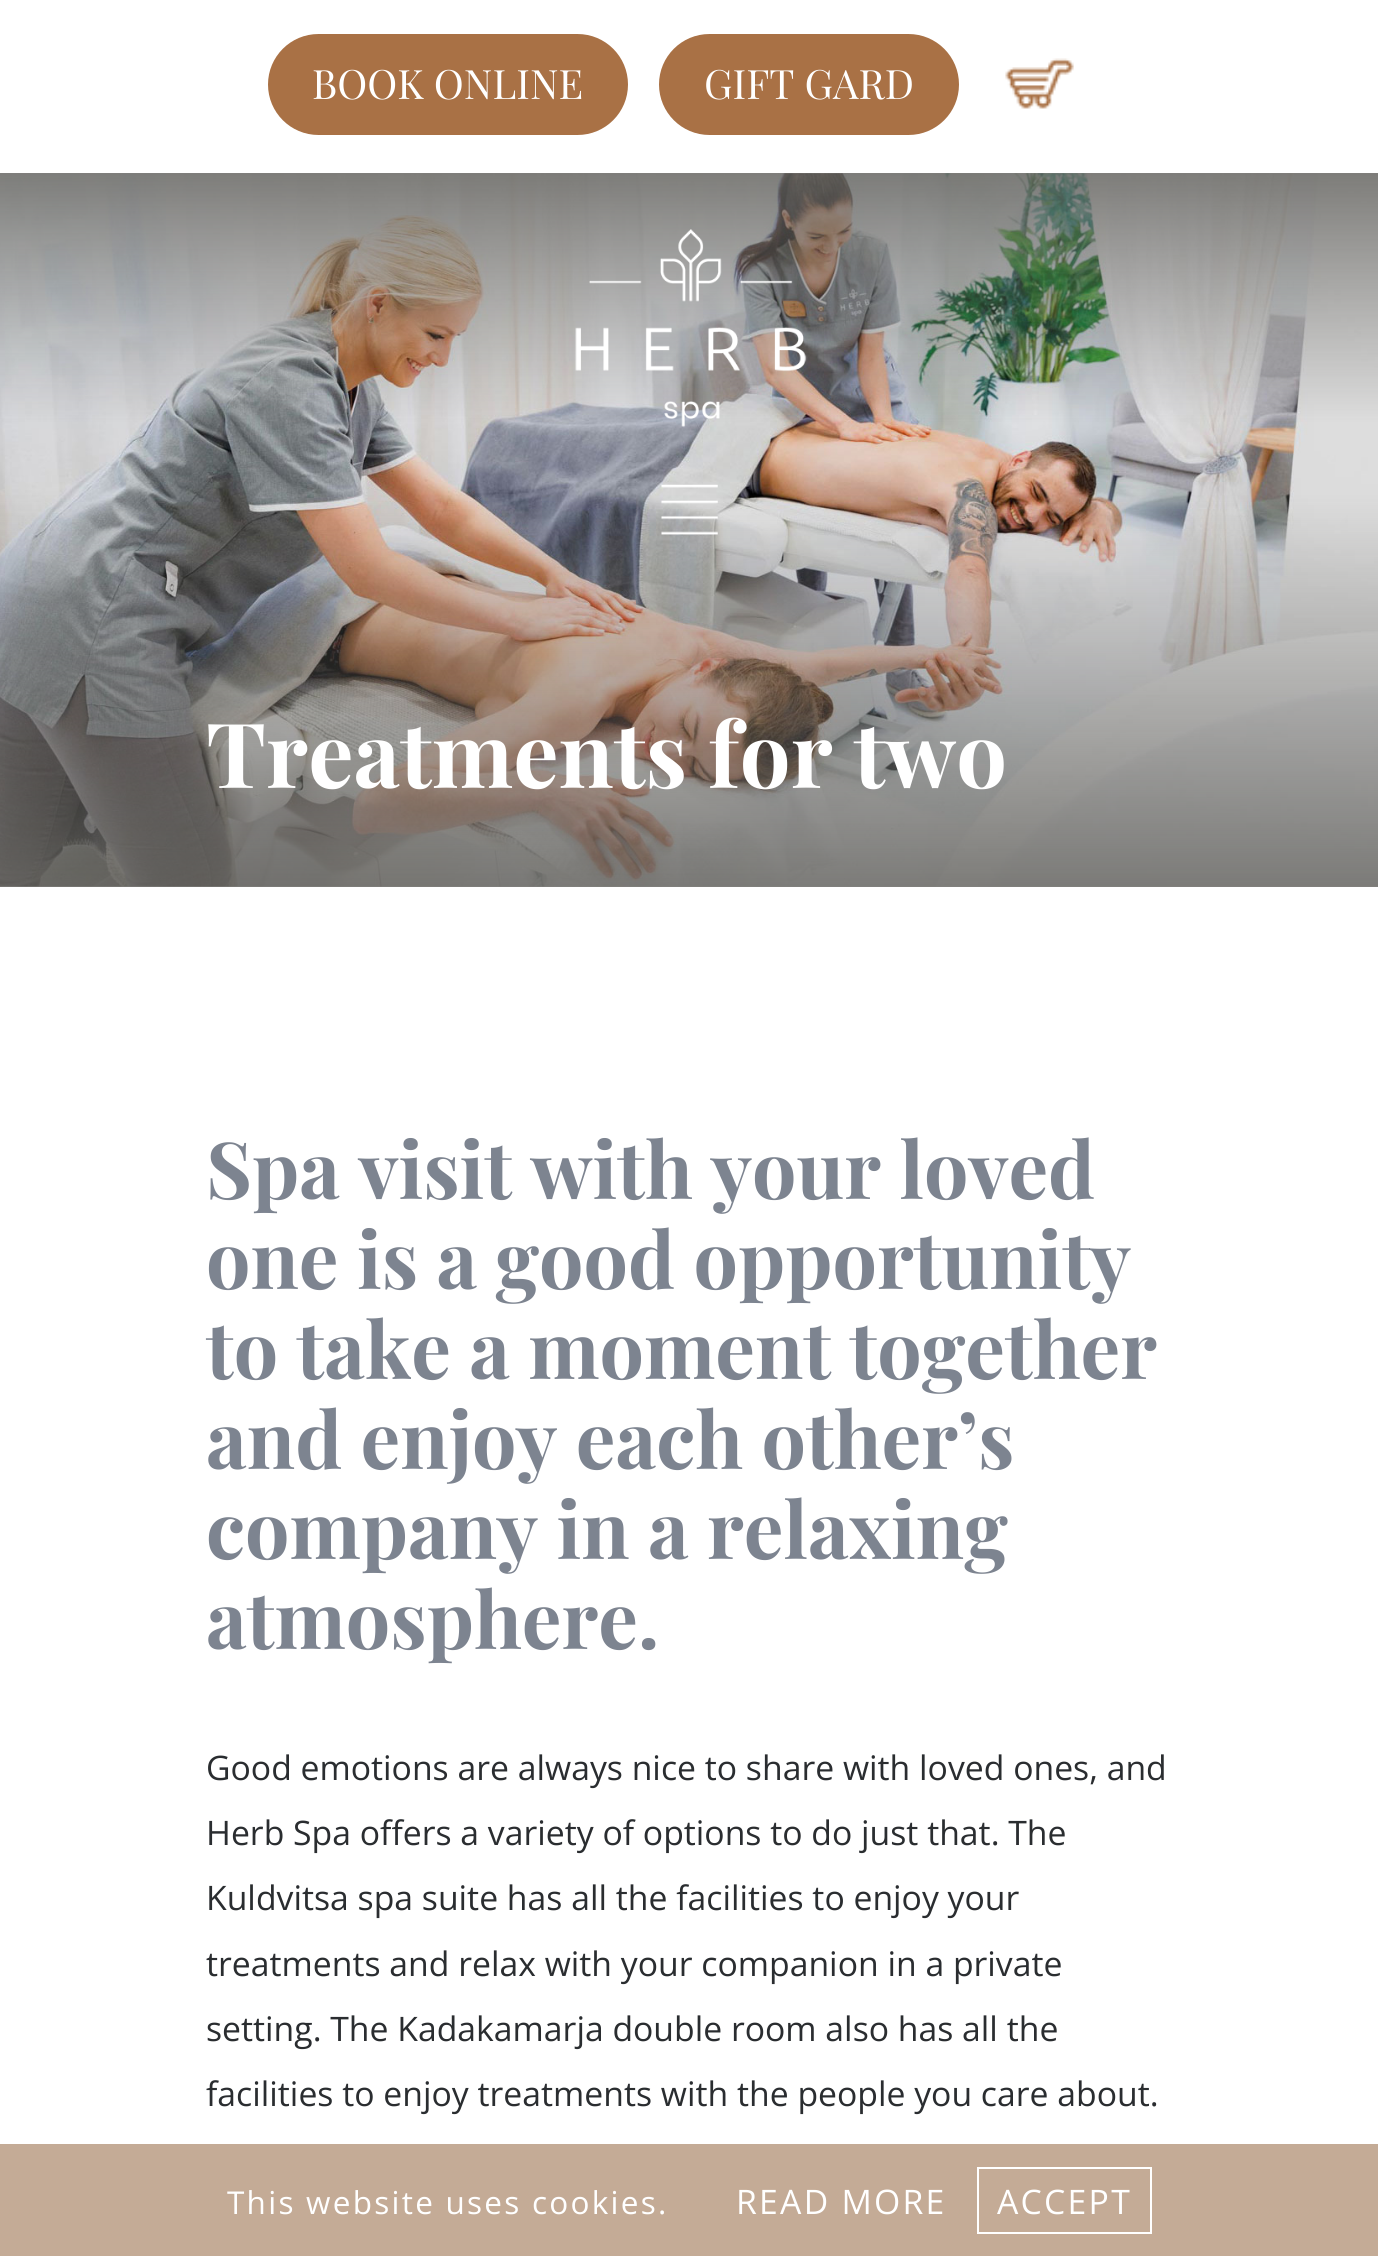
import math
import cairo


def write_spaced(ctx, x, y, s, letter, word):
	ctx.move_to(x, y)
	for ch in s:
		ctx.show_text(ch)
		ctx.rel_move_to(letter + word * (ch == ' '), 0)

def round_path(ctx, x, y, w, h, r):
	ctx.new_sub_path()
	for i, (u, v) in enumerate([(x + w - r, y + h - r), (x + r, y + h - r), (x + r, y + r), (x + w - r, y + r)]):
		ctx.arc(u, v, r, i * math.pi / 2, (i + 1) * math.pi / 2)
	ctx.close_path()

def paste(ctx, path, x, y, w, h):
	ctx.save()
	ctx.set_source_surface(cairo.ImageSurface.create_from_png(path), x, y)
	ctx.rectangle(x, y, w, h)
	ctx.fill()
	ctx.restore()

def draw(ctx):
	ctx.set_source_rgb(1, 1, 1)
	ctx.paint()
	ctx.set_source_rgb(0.663, 0.443, 0.271)
	round_path(ctx, 268, 34, 360, 101, 50.5)
	ctx.fill()
	ctx.select_font_face('Playfair Display')
	ctx.set_font_size(40.5)
	ctx.set_source_rgb(1, 1, 1)
	ctx.move_to(312, 99)
	ctx.show_text('BOOK ONLINE')
	ctx.set_source_rgb(0.663, 0.443, 0.271)
	round_path(ctx, 659, 34, 300, 101, 50.5)
	ctx.fill()
	ctx.set_source_rgb(1, 1, 1)
	ctx.move_to(704, 99)
	ctx.show_text('GIFT GARD')
	paste(ctx, 'media/1.png', 1005, 58, 69, 51)
	paste(ctx, 'media/4.png', 0, 173, 1378, 714)
	gradient = cairo.LinearGradient(690, 173, 690, 887)
	gradient.add_color_stop_rgba(0, 0.396, 0.392, 0.376, 0.8)
	gradient.add_color_stop_rgba(0.35, 0.396, 0.392, 0.376, 0)
	gradient.add_color_stop_rgba(0.45, 0.396, 0.392, 0.376, 0)
	gradient.add_color_stop_rgba(1, 0.396, 0.392, 0.376, 0.8)
	ctx.set_source(gradient)
	ctx.rectangle(0, 173, 1378, 714)
	ctx.fill()
	paste(ctx, 'media/2.png', 575, 229, 232, 198)
	paste(ctx, 'media/3.png', 661, 484, 57, 51)
	ctx.select_font_face('Playfair Display', cairo.FONT_SLANT_NORMAL, cairo.FONT_WEIGHT_BOLD)
	ctx.set_font_size(90)
	ctx.set_source_rgb(1, 1, 1)
	ctx.move_to(206, 788)
	ctx.show_text('Treatments for two')
	ctx.set_font_size(78.75)
	ctx.set_source_rgb(0.49, 0.518, 0.565)
	for x, y, s in [
		(206, 1199, 'Spa visit with your loved'),
		(206, 1289, 'one is a good opportunity'),
		(206, 1379, 'to take a moment together'),
		(206, 1469, 'and enjoy each other’s'),
		(206, 1559, 'company in a relaxing'),
		(206, 1649, 'atmosphere.'),
	]:
		ctx.move_to(x, y)
		ctx.show_text(s)
	ctx.select_font_face('Open Sans')
	ctx.set_font_size(33.75)
	ctx.set_source_rgb(0.165, 0.176, 0.188)
	for x, y, s in [
		(206, 1780, 'Good emotions are always nice to share with loved ones, and'),
		(206, 1845, 'Herb Spa offers a variety of options to do just that. The'),
		(206, 1910, 'Kuldvitsa spa suite has all the facilities to enjoy your'),
		(206, 1976, 'treatments and relax with your companion in a private'),
		(206, 2041, 'setting. The Kadakamarja double room also has all the'),
		(206, 2106, 'facilities to enjoy treatments with the people you care about.'),
	]:
		ctx.move_to(x, y)
		ctx.show_text(s)
	ctx.set_source_rgb(0.769, 0.671, 0.588)
	ctx.rectangle(0, 2144, 1378, 112)
	ctx.fill()
	ctx.set_font_size(31.5)
	ctx.set_source_rgb(1, 1, 1)
	write_spaced(ctx, 227, 2214, 'This website uses cookies.', 2.25, 0)
	ctx.set_font_size(33.75)
	write_spaced(ctx, 736, 2214, 'READ MORE', 2.25, 0)
	ctx.rectangle(978, 2168, 173, 65)
	ctx.stroke()
	write_spaced(ctx, 997, 2214, 'ACCEPT', 2.25, 0)


surface = cairo.ImageSurface(cairo.FORMAT_RGB24, 1378, 2256)
ctx = cairo.Context(surface)
options = cairo.FontOptions()
options.set_hint_metrics(cairo.HINT_METRICS_OFF)
options.set_hint_style(cairo.HINT_STYLE_NONE)
ctx.set_font_options(options)
ctx.set_miter_limit(4)
draw(ctx)
surface.write_to_png('image.png')
